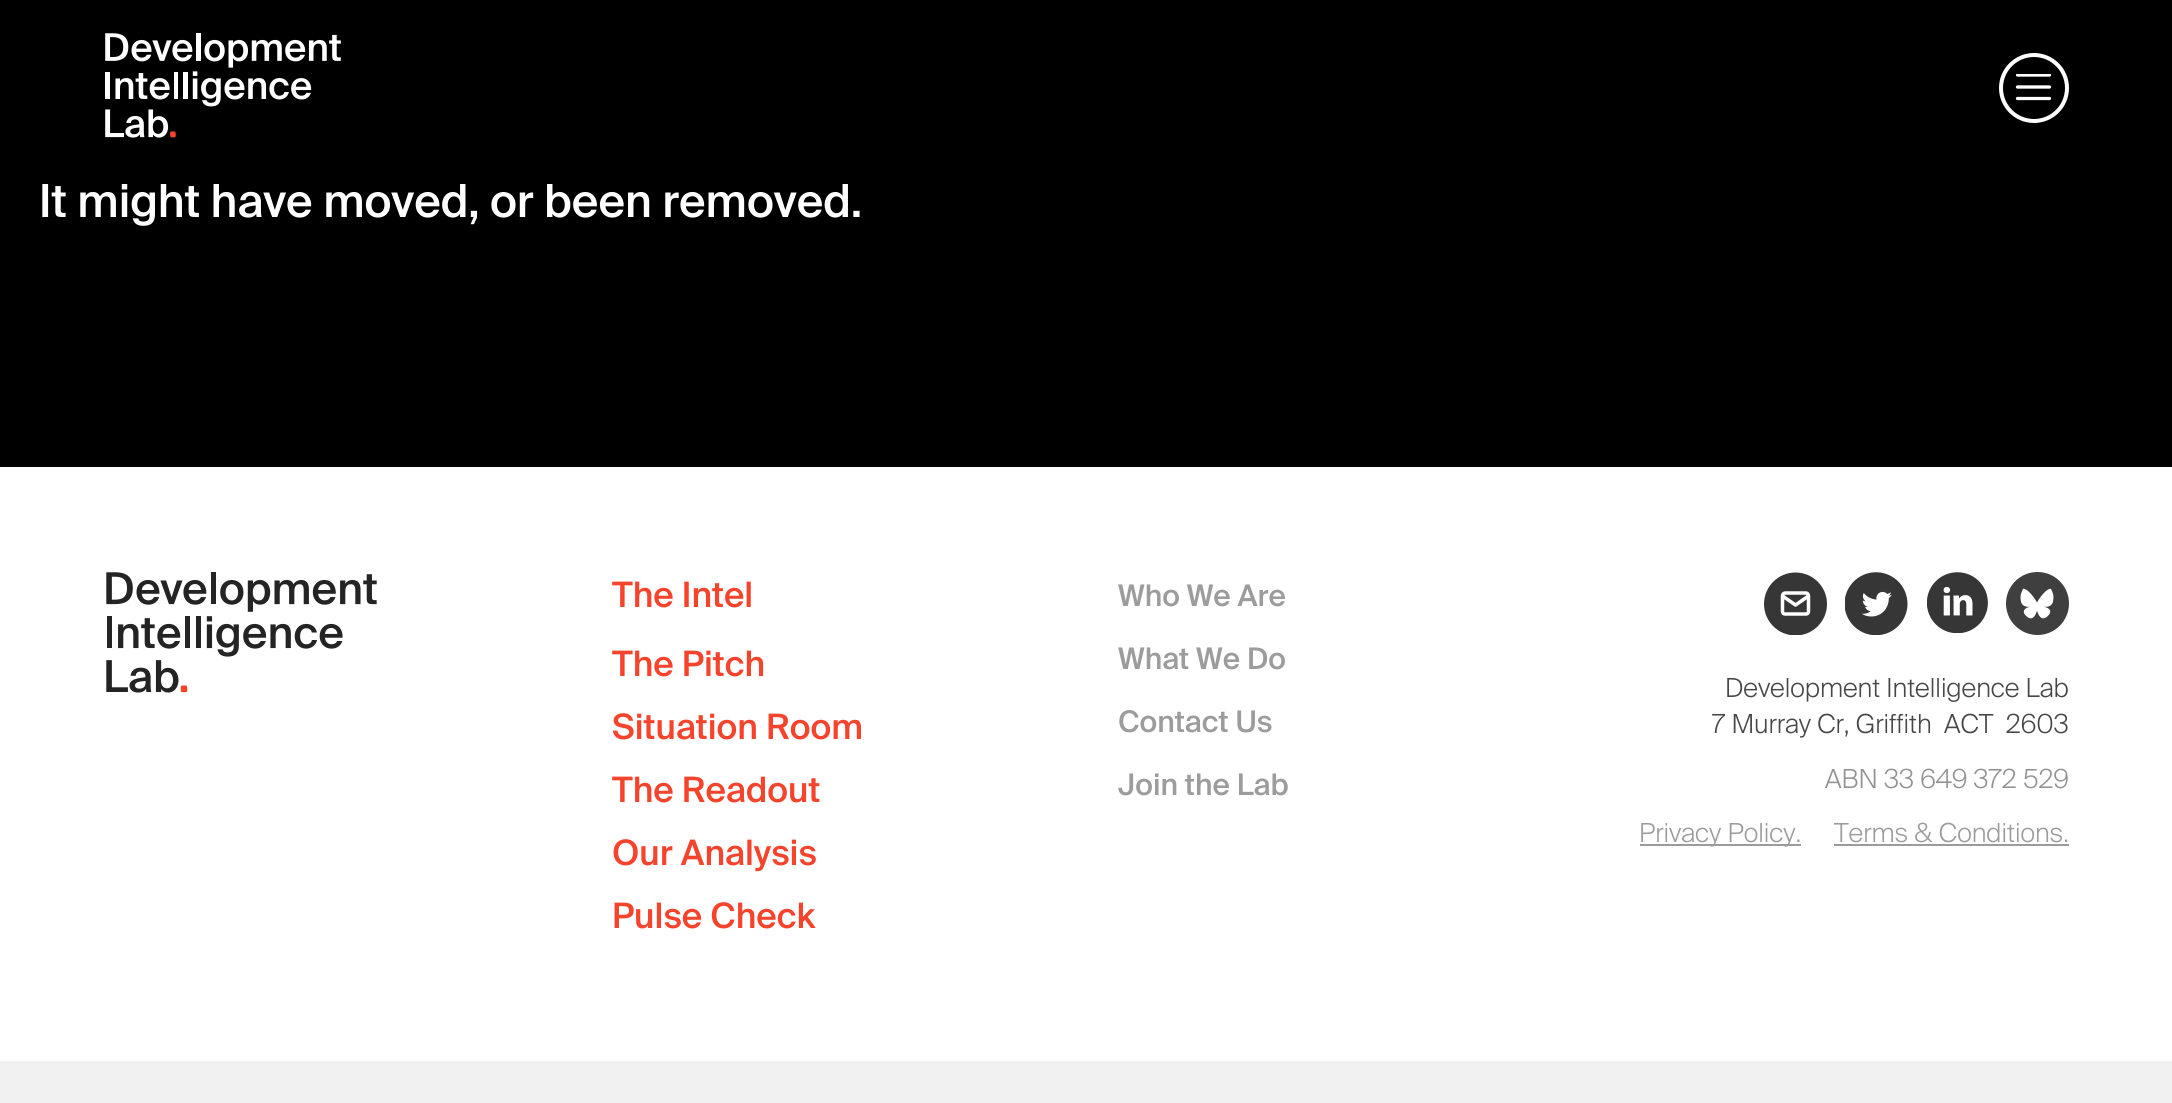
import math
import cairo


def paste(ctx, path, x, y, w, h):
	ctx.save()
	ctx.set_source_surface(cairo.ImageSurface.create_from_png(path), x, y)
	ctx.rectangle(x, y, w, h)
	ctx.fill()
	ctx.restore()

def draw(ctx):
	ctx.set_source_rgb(1, 1, 1)
	ctx.paint()
	ctx.set_source_rgb(0, 0, 0)
	ctx.rectangle(0, 0, 2172, 467)
	ctx.fill()
	paste(ctx, 'media/1.png', 105, 33, 236, 105)
	ctx.arc(2034, 88, 33, 0, 2 * math.pi)
	ctx.set_source_rgb(1, 1, 1)
	ctx.set_line_width(4)
	ctx.stroke()
	ctx.save()
	ctx.rectangle(2016, 74, 35, 28)
	ctx.clip()
	ctx.new_path()
	ctx.move_to(2017.5, 75)
	ctx.line_to(2049.5, 75)
	ctx.set_line_width(3.3)
	ctx.set_line_cap(cairo.LINE_CAP_ROUND)
	ctx.stroke()
	ctx.restore()
	ctx.new_path()
	ctx.move_to(2017.5, 87)
	ctx.line_to(2049.5, 87)
	ctx.move_to(2017.5, 98.5)
	ctx.line_to(2049.5, 98.5)
	ctx.set_line_width(3.3)
	ctx.set_line_cap(cairo.LINE_CAP_ROUND)
	ctx.stroke()
	ctx.select_font_face('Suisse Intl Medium')
	ctx.set_font_size(45.5)
	ctx.move_to(39, 217)
	ctx.show_text('It might have moved, or been removed.')
	paste(ctx, 'media/2.png', 106, 572, 271, 121)
	ctx.set_font_size(35)
	ctx.set_source_rgb(0.961, 0.267, 0.173)
	for x, y, s in [
		(612, 607, 'The Intel'),
		(612, 676, 'The Pitch'),
		(612, 739, 'Situation Room'),
		(612, 802, 'The Readout'),
		(612, 865, 'Our Analysis'),
		(612, 928, 'Pulse Check'),
	]:
		ctx.move_to(x, y)
		ctx.show_text(s)
	ctx.set_font_size(29.75)
	ctx.set_source_rgb(0.612, 0.612, 0.612)
	for x, y, s in [
		(1118, 606, 'Who We Are'),
		(1118, 669, 'What We Do'),
		(1118, 732, 'Contact Us'),
		(1118, 795, 'Join the Lab'),
	]:
		ctx.move_to(x, y)
		ctx.show_text(s)
	ctx.save()
	ctx.rectangle(1764, 572, 63, 63)
	ctx.clip()
	ctx.set_source_rgb(0.212, 0.212, 0.212)
	ctx.arc(1795.5, 604, 31.5, 0, 2 * math.pi)
	ctx.fill()
	ctx.restore()
	ctx.new_path()
	ctx.move_to(1785, 593)
	ctx.line_to(1806, 593)
	ctx.curve_to(1807.5, 593, 1808.5, 594.5, 1808.5, 596)
	ctx.line_to(1808.5, 611.5)
	ctx.curve_to(1808.5, 613, 1807.5, 614, 1806, 614)
	ctx.line_to(1785, 614)
	ctx.curve_to(1783.5, 614, 1782.5, 613, 1782.5, 611.5)
	ctx.line_to(1782.5, 596)
	ctx.curve_to(1782.5, 594.5, 1783.5, 593, 1785, 593)
	ctx.close_path()
	ctx.move_to(1808.5, 596)
	ctx.line_to(1795.5, 605)
	ctx.line_to(1782.5, 596)
	ctx.set_source_rgb(1, 1, 1)
	ctx.set_line_width(3.5)
	ctx.set_line_join(cairo.LINE_JOIN_ROUND)
	ctx.stroke()
	paste(ctx, 'media/3.png', 1845, 572, 63, 63)
	paste(ctx, 'media/4.png', 1927, 572, 61, 61)
	ctx.set_source_rgb(0.247, 0.247, 0.247)
	ctx.arc(2037.5, 603.5, 31.5, 0, 2 * math.pi)
	ctx.fill()
	paste(ctx, 'media/5.png', 2020, 588, 34, 31)
	ctx.select_font_face('Suisse Intl Light')
	ctx.set_font_size(26.25)
	ctx.set_source_rgb(0.278, 0.278, 0.278)
	ctx.move_to(1725, 697)
	ctx.show_text('Development Intelligence Lab')
	ctx.move_to(1712, 733)
	ctx.show_text('7 Murray Cr, Griffith  ACT  2603')
	ctx.set_source_rgb(0.573, 0.573, 0.573)
	ctx.move_to(1825, 788)
	ctx.show_text('ABN 33 649 372 529')
	ctx.set_source_rgb(0.608, 0.608, 0.608)
	ctx.rectangle(1640, 844, 161, 2)
	ctx.fill()
	ctx.set_source_rgb(0.612, 0.612, 0.612)
	ctx.move_to(1639, 842)
	ctx.show_text('Privacy Policy.')
	ctx.move_to(1834, 842)
	ctx.show_text('Terms & Conditions.')
	ctx.set_source_rgb(0.608, 0.608, 0.608)
	ctx.rectangle(1834, 844, 235, 2)
	ctx.fill()
	ctx.set_source_rgb(0.945, 0.945, 0.945)
	ctx.rectangle(0, 1061, 2172, 42)
	ctx.fill()


surface = cairo.ImageSurface(cairo.FORMAT_RGB24, 2172, 1103)
ctx = cairo.Context(surface)
options = cairo.FontOptions()
options.set_hint_metrics(cairo.HINT_METRICS_OFF)
options.set_hint_style(cairo.HINT_STYLE_NONE)
ctx.set_font_options(options)
ctx.set_miter_limit(4)
draw(ctx)
surface.write_to_png('image.png')
